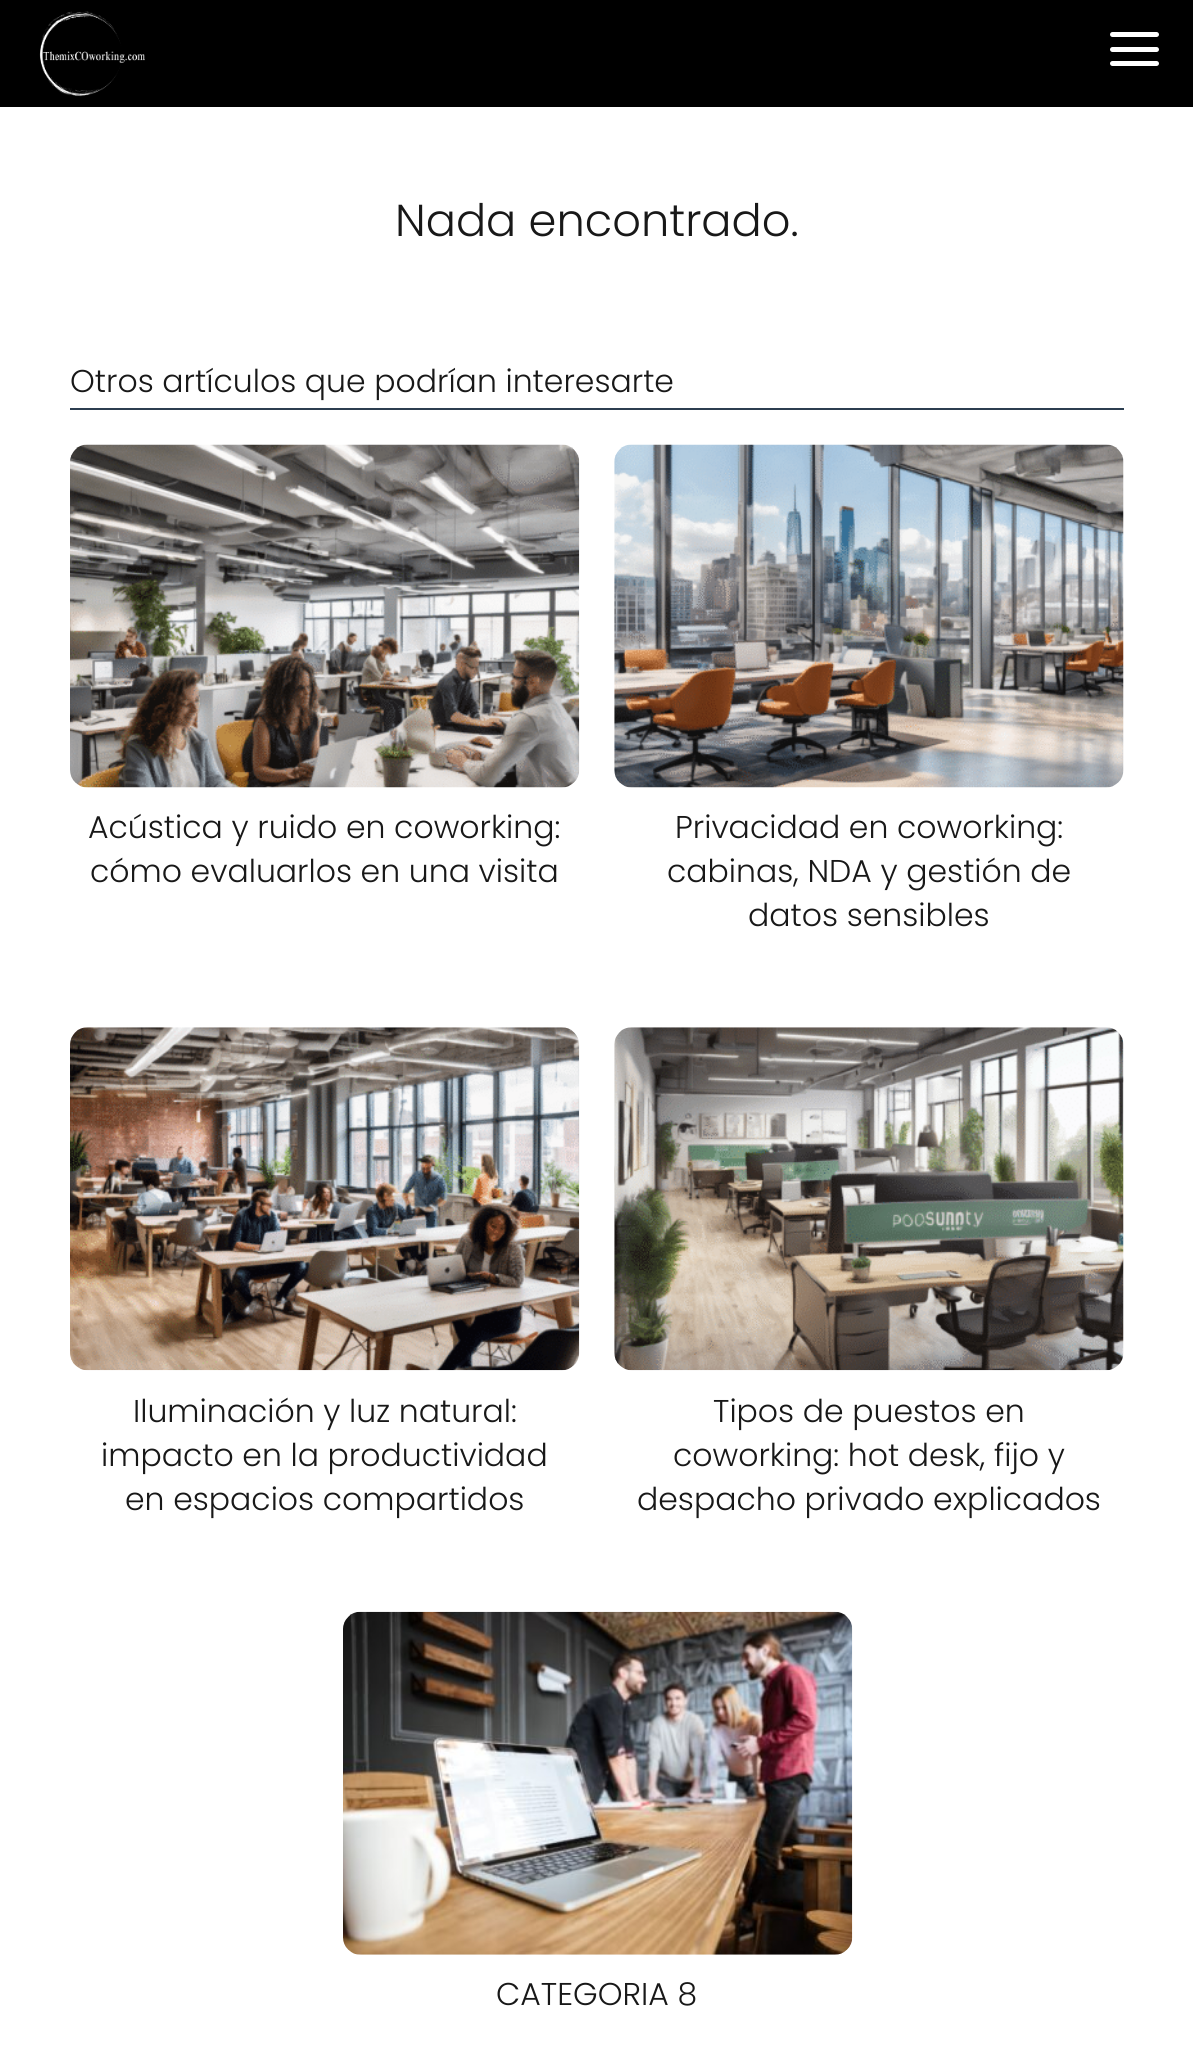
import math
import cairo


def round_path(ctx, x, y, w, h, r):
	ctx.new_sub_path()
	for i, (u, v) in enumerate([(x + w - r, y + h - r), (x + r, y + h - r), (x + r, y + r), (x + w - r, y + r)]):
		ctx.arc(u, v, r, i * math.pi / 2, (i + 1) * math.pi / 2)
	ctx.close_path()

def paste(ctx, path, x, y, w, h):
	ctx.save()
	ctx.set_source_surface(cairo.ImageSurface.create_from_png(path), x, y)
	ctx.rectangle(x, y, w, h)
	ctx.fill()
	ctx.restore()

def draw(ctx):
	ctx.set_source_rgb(1, 1, 1)
	ctx.paint()
	ctx.set_source_rgb(0, 0, 0)
	ctx.rectangle(0, 0, 1193, 107)
	ctx.fill()
	paste(ctx, 'media/1.png', 39, 11, 106, 86)
	ctx.set_source_rgb(1, 1, 1)
	round_path(ctx, 1110, 32, 49, 5, 2.5)
	ctx.fill()
	round_path(ctx, 1110, 47, 49, 5, 2.5)
	ctx.fill()
	round_path(ctx, 1110, 61, 49, 5, 2.5)
	ctx.fill()
	ctx.select_font_face('Poppins Light')
	ctx.set_font_size(44.75)
	ctx.set_source_rgb(0.094, 0.094, 0.094)
	ctx.move_to(395, 236)
	ctx.show_text('Nada encontrado.')
	ctx.set_source_rgb(0.173, 0.243, 0.314)
	ctx.rectangle(70, 408, 1054, 2)
	ctx.fill()
	ctx.set_font_size(31.5)
	ctx.set_source_rgb(0.094, 0.094, 0.094)
	ctx.move_to(70, 392)
	ctx.show_text('Otros artículos que podrían interesarte')
	paste(ctx, 'media/2.png', 70, 444, 510, 344)
	ctx.move_to(88, 838)
	ctx.show_text('Acústica y ruido en coworking:')
	ctx.move_to(90, 882)
	ctx.show_text('cómo evaluarlos en una visita')
	paste(ctx, 'media/3.png', 614, 444, 510, 344)
	for x, y, s in [
		(675, 838, 'Privacidad en coworking:'),
		(667, 882, 'cabinas, NDA y gestión de'),
		(748, 926, 'datos sensibles'),
	]:
		ctx.move_to(x, y)
		ctx.show_text(s)
	paste(ctx, 'media/4.png', 70, 1027, 510, 344)
	for x, y, s in [
		(133, 1422, 'Iluminación y luz natural:'),
		(101, 1466, 'impacto en la productividad'),
		(125, 1510, 'en espacios compartidos'),
	]:
		ctx.move_to(x, y)
		ctx.show_text(s)
	paste(ctx, 'media/5.png', 614, 1027, 510, 344)
	for x, y, s in [
		(713, 1422, 'Tipos de puestos en'),
		(673, 1466, 'coworking: hot desk, fijo y'),
		(637, 1510, 'despacho privado explicados'),
	]:
		ctx.move_to(x, y)
		ctx.show_text(s)
	paste(ctx, 'media/6.png', 343, 1611, 510, 344)
	ctx.move_to(496, 2005)
	ctx.show_text('CATEGORIA 8')


surface = cairo.ImageSurface(cairo.FORMAT_RGB24, 1193, 2054)
ctx = cairo.Context(surface)
options = cairo.FontOptions()
options.set_hint_metrics(cairo.HINT_METRICS_OFF)
options.set_hint_style(cairo.HINT_STYLE_NONE)
ctx.set_font_options(options)
ctx.set_miter_limit(4)
draw(ctx)
surface.write_to_png('image.png')
